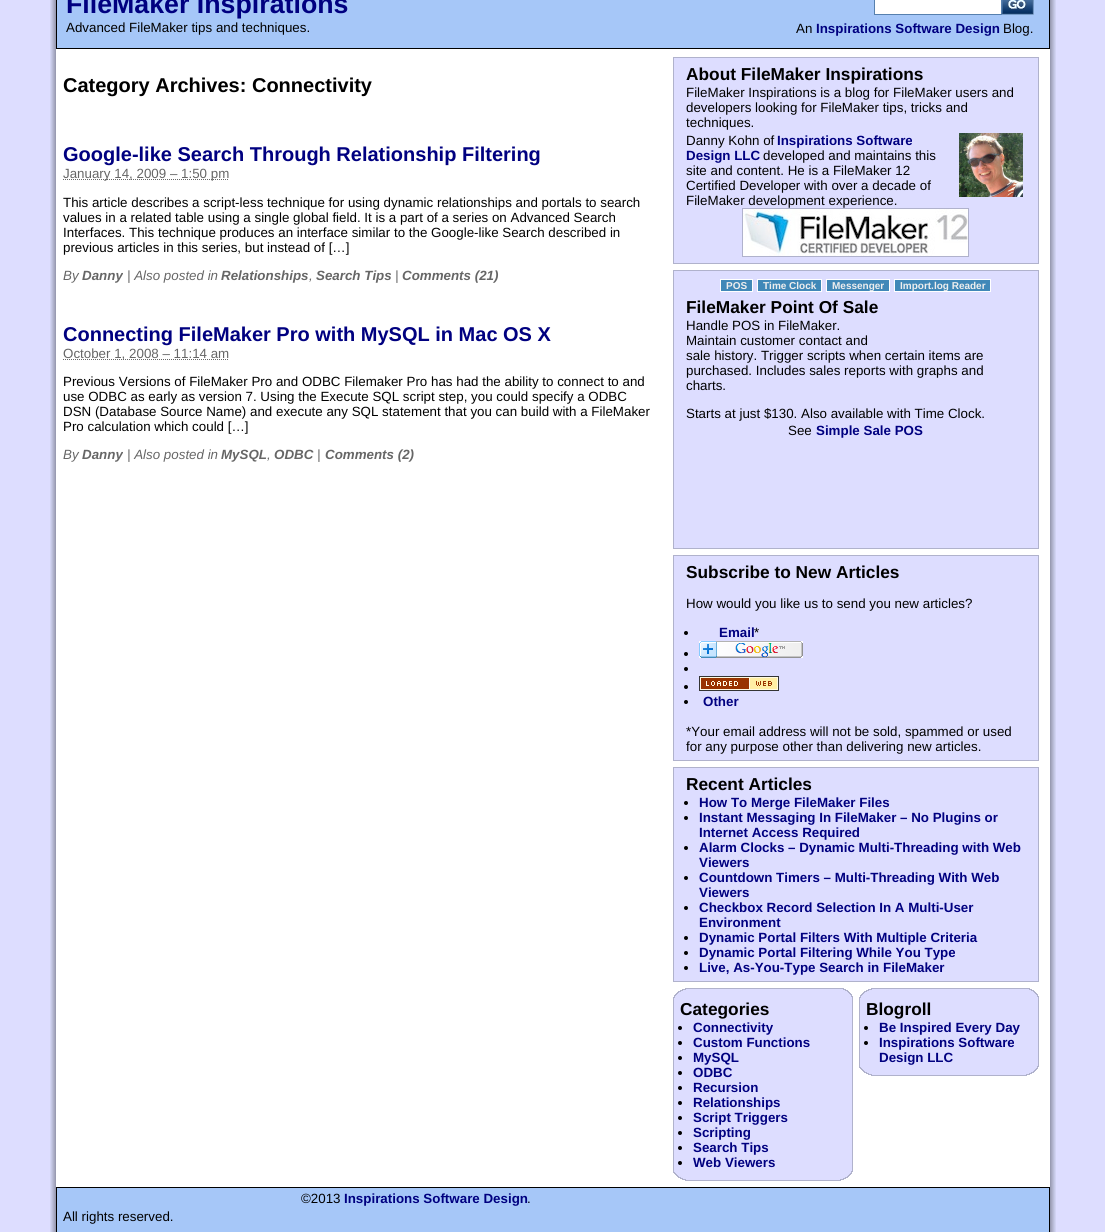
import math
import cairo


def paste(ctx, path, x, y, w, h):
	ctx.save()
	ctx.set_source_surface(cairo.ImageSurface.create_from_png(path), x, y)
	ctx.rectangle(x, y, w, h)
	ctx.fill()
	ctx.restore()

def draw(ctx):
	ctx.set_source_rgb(0.867, 0.867, 1)
	ctx.paint()
	paste(ctx, 'media/1.png', 50, 0, 1006, 1232)
	ctx.set_source_rgb(0.651, 0.78, 0.969)
	ctx.rectangle(56.5, -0.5, 993, 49)
	ctx.fill_preserve()
	ctx.set_source_rgb(0, 0, 0)
	ctx.set_line_width(1)
	ctx.stroke()
	ctx.select_font_face('Liberation Sans', cairo.FONT_SLANT_NORMAL, cairo.FONT_WEIGHT_BOLD)
	ctx.set_font_size(26.75)
	ctx.set_source_rgb(0, 0, 0.502)
	ctx.move_to(66, 13)
	ctx.show_text('FileMaker Inspirations')
	ctx.set_source_rgb(1, 1, 1)
	ctx.rectangle(874.5, -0.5, 127, 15)
	ctx.fill_preserve()
	ctx.set_source_rgb(0.341, 0.502, 0.682)
	ctx.stroke()
	paste(ctx, 'media/2.png', 1002, 0, 32, 15)
	ctx.select_font_face('Liberation Sans')
	ctx.set_font_size(13.35)
	ctx.set_source_rgb(0, 0, 0)
	ctx.move_to(66, 32)
	ctx.show_text('Advanced FileMaker tips and techniques.')
	ctx.move_to(796, 33)
	ctx.show_text('An')
	ctx.select_font_face('Liberation Sans', cairo.FONT_SLANT_NORMAL, cairo.FONT_WEIGHT_BOLD)
	ctx.set_source_rgb(0, 0, 0.502)
	ctx.move_to(816, 33)
	ctx.show_text('Inspirations Software Design')
	ctx.select_font_face('Liberation Sans')
	ctx.set_source_rgb(0, 0, 0)
	ctx.move_to(1003, 33)
	ctx.show_text('Blog.')
	ctx.select_font_face('Liberation Sans', cairo.FONT_SLANT_NORMAL, cairo.FONT_WEIGHT_BOLD)
	ctx.set_font_size(20)
	ctx.move_to(63, 92)
	ctx.show_text('Category Archives: Connectivity')
	ctx.set_source_rgb(0, 0, 0.502)
	ctx.move_to(63, 161)
	ctx.show_text('Google-like Search Through Relationship Filtering')
	ctx.new_path()
	ctx.move_to(63, 179.5)
	ctx.line_to(229, 179.5)
	ctx.set_source_rgb(0.4, 0.4, 0.4)
	ctx.set_dash([1, 1])
	ctx.stroke()
	ctx.select_font_face('Liberation Sans')
	ctx.set_font_size(13.35)
	ctx.move_to(63, 178)
	ctx.show_text('January 14, 2009 – 1:50 pm')
	ctx.set_source_rgb(0, 0, 0)
	for x, y, s in [
		(63, 207, 'This article describes a script-less technique for using dynamic relationships and portals to search'),
		(63, 222, 'values in a related table using a single global field. It is a part of a series on Advanced Search'),
		(63, 237, 'Interfaces. This technique produces an interface similar to the Google-like Search described in'),
		(63, 252, 'previous articles in this series, but instead of […]'),
	]:
		ctx.move_to(x, y)
		ctx.show_text(s)
	ctx.select_font_face('Liberation Sans', cairo.FONT_SLANT_ITALIC)
	ctx.set_source_rgb(0.4, 0.4, 0.4)
	ctx.move_to(63, 280)
	ctx.show_text('By')
	ctx.select_font_face('Liberation Sans', cairo.FONT_SLANT_ITALIC, cairo.FONT_WEIGHT_BOLD)
	ctx.move_to(82, 280)
	ctx.show_text('Danny')
	ctx.select_font_face('Liberation Sans', cairo.FONT_SLANT_ITALIC)
	ctx.move_to(127, 280)
	ctx.show_text('| Also posted in')
	ctx.select_font_face('Liberation Sans', cairo.FONT_SLANT_ITALIC, cairo.FONT_WEIGHT_BOLD)
	ctx.move_to(221, 280)
	ctx.show_text('Relationships')
	ctx.select_font_face('Liberation Sans', cairo.FONT_SLANT_ITALIC)
	ctx.move_to(309, 280)
	ctx.show_text(',')
	ctx.select_font_face('Liberation Sans', cairo.FONT_SLANT_ITALIC, cairo.FONT_WEIGHT_BOLD)
	ctx.move_to(316, 280)
	ctx.show_text('Search Tips')
	ctx.select_font_face('Liberation Sans', cairo.FONT_SLANT_ITALIC)
	ctx.move_to(395, 280)
	ctx.show_text('|')
	ctx.select_font_face('Liberation Sans', cairo.FONT_SLANT_ITALIC, cairo.FONT_WEIGHT_BOLD)
	ctx.move_to(402, 280)
	ctx.show_text('Comments (21)')
	ctx.select_font_face('Liberation Sans', cairo.FONT_SLANT_NORMAL, cairo.FONT_WEIGHT_BOLD)
	ctx.set_font_size(20)
	ctx.set_source_rgb(0, 0, 0.502)
	ctx.move_to(63, 341)
	ctx.show_text('Connecting FileMaker Pro with MySQL in Mac OS X')
	ctx.new_path()
	ctx.move_to(63, 359.5)
	ctx.line_to(229, 359.5)
	ctx.set_source_rgb(0.4, 0.4, 0.4)
	ctx.stroke()
	ctx.select_font_face('Liberation Sans')
	ctx.set_font_size(13.35)
	ctx.move_to(63, 358)
	ctx.show_text('October 1, 2008 – 11:14 am')
	ctx.set_source_rgb(0, 0, 0)
	for x, y, s in [
		(63, 386, 'Previous Versions of FileMaker Pro and ODBC Filemaker Pro has had the ability to connect to and'),
		(63, 401, 'use ODBC as early as version 7. Using the Execute SQL script step, you could specify a ODBC'),
		(63, 416, 'DSN (Database Source Name) and execute any SQL statement that you can build with a FileMaker'),
		(63, 431, 'Pro calculation which could […]'),
	]:
		ctx.move_to(x, y)
		ctx.show_text(s)
	ctx.select_font_face('Liberation Sans', cairo.FONT_SLANT_ITALIC)
	ctx.set_source_rgb(0.4, 0.4, 0.4)
	ctx.move_to(63, 459)
	ctx.show_text('By')
	ctx.select_font_face('Liberation Sans', cairo.FONT_SLANT_ITALIC, cairo.FONT_WEIGHT_BOLD)
	ctx.move_to(82, 459)
	ctx.show_text('Danny')
	ctx.select_font_face('Liberation Sans', cairo.FONT_SLANT_ITALIC)
	ctx.move_to(127, 459)
	ctx.show_text('| Also posted in')
	ctx.select_font_face('Liberation Sans', cairo.FONT_SLANT_ITALIC, cairo.FONT_WEIGHT_BOLD)
	ctx.move_to(221, 459)
	ctx.show_text('MySQL')
	ctx.select_font_face('Liberation Sans', cairo.FONT_SLANT_ITALIC)
	ctx.move_to(267, 459)
	ctx.show_text(',')
	ctx.select_font_face('Liberation Sans', cairo.FONT_SLANT_ITALIC, cairo.FONT_WEIGHT_BOLD)
	ctx.move_to(274, 459)
	ctx.show_text('ODBC')
	ctx.select_font_face('Liberation Sans', cairo.FONT_SLANT_ITALIC)
	ctx.move_to(317, 459)
	ctx.show_text('|')
	ctx.select_font_face('Liberation Sans', cairo.FONT_SLANT_ITALIC, cairo.FONT_WEIGHT_BOLD)
	ctx.move_to(325, 459)
	ctx.show_text('Comments (2)')
	ctx.set_source_rgb(0.867, 0.867, 1)
	ctx.rectangle(673.5, 57.5, 365, 206)
	ctx.fill_preserve()
	ctx.set_source_rgb(0.69, 0.698, 0.8)
	ctx.set_dash([])
	ctx.stroke()
	ctx.select_font_face('Liberation Sans', cairo.FONT_SLANT_NORMAL, cairo.FONT_WEIGHT_BOLD)
	ctx.set_font_size(17.3)
	ctx.set_source_rgb(0, 0, 0)
	ctx.move_to(686, 80)
	ctx.show_text('About FileMaker Inspirations')
	ctx.select_font_face('Liberation Sans')
	ctx.set_font_size(13.35)
	for x, y, s in [
		(686, 97, 'FileMaker Inspirations is a blog for FileMaker users and'),
		(686, 112, 'developers looking for FileMaker tips, tricks and'),
		(686, 127, 'techniques.'),
		(686, 145, 'Danny Kohn of'),
	]:
		ctx.move_to(x, y)
		ctx.show_text(s)
	ctx.select_font_face('Liberation Sans', cairo.FONT_SLANT_NORMAL, cairo.FONT_WEIGHT_BOLD)
	ctx.set_source_rgb(0, 0, 0.502)
	ctx.move_to(777, 145)
	ctx.show_text('Inspirations Software')
	ctx.move_to(686, 160)
	ctx.show_text('Design LLC')
	ctx.select_font_face('Liberation Sans')
	ctx.set_source_rgb(0, 0, 0)
	for x, y, s in [
		(763, 160, 'developed and maintains this'),
		(686, 175, 'site and content. He is a FileMaker 12'),
		(686, 190, 'Certified Developer with over a decade of'),
		(686, 205, 'FileMaker development experience.'),
	]:
		ctx.move_to(x, y)
		ctx.show_text(s)
	paste(ctx, 'media/3.png', 959, 133, 64, 64)
	ctx.rectangle(742.5, 208.5, 226, 48)
	ctx.set_source_rgb(0.69, 0.698, 0.8)
	ctx.stroke()
	paste(ctx, 'media/4.png', 743, 209, 225, 47)
	ctx.set_source_rgb(0.867, 0.867, 1)
	ctx.rectangle(673.5, 270.5, 365, 278)
	ctx.fill_preserve()
	ctx.set_source_rgb(0.69, 0.698, 0.8)
	ctx.stroke()
	ctx.set_source_rgb(0.251, 0.533, 0.722)
	ctx.rectangle(720.5, 279.5, 32, 12)
	ctx.fill_preserve()
	ctx.set_source_rgb(1, 1, 1)
	ctx.stroke()
	ctx.select_font_face('Liberation Sans', cairo.FONT_SLANT_NORMAL, cairo.FONT_WEIGHT_BOLD)
	ctx.set_font_size(10)
	ctx.set_source_rgb(0.933, 0.933, 0.933)
	ctx.move_to(726, 289)
	ctx.show_text('POS')
	ctx.set_source_rgb(0.251, 0.533, 0.722)
	ctx.rectangle(757.5, 279.5, 64, 12)
	ctx.fill_preserve()
	ctx.set_source_rgb(1, 1, 1)
	ctx.stroke()
	ctx.set_source_rgb(0.933, 0.933, 0.933)
	ctx.move_to(763, 289)
	ctx.show_text('Time Clock')
	ctx.set_source_rgb(0.251, 0.533, 0.722)
	ctx.rectangle(826.5, 279.5, 63, 12)
	ctx.fill_preserve()
	ctx.set_source_rgb(1, 1, 1)
	ctx.stroke()
	ctx.set_source_rgb(0.933, 0.933, 0.933)
	ctx.move_to(832, 289)
	ctx.show_text('Messenger')
	ctx.set_source_rgb(0.251, 0.533, 0.722)
	ctx.rectangle(894.5, 279.5, 96, 12)
	ctx.fill_preserve()
	ctx.set_source_rgb(1, 1, 1)
	ctx.stroke()
	ctx.set_source_rgb(0.933, 0.933, 0.933)
	ctx.move_to(900, 289)
	ctx.show_text('Import.log Reader')
	ctx.set_font_size(17.3)
	ctx.set_source_rgb(0, 0, 0)
	ctx.move_to(686, 313)
	ctx.show_text('FileMaker Point Of Sale')
	ctx.select_font_face('Liberation Sans')
	ctx.set_font_size(13.35)
	for x, y, s in [
		(686, 330, 'Handle POS in FileMaker.'),
		(686, 345, 'Maintain customer contact and'),
		(686, 360, 'sale history. Trigger scripts when certain items are'),
		(686, 375, 'purchased. Includes sales reports with graphs and'),
		(686, 390, 'charts.'),
		(686, 418, 'Starts at just $130. Also available with Time Clock.'),
		(788, 435, 'See'),
	]:
		ctx.move_to(x, y)
		ctx.show_text(s)
	ctx.select_font_face('Liberation Sans', cairo.FONT_SLANT_NORMAL, cairo.FONT_WEIGHT_BOLD)
	ctx.set_source_rgb(0, 0, 0.502)
	ctx.move_to(816, 435)
	ctx.show_text('Simple Sale POS')
	ctx.set_source_rgb(0.867, 0.867, 1)
	ctx.rectangle(673.5, 555.5, 365, 205)
	ctx.fill_preserve()
	ctx.set_source_rgb(0.69, 0.698, 0.8)
	ctx.stroke()
	ctx.set_font_size(17.3)
	ctx.set_source_rgb(0, 0, 0)
	ctx.move_to(686, 578)
	ctx.show_text('Subscribe to New Articles')
	ctx.select_font_face('Liberation Sans')
	ctx.set_font_size(13.35)
	ctx.move_to(686, 608)
	ctx.show_text('How would you like us to send you new articles?')
	ctx.new_path()
	ctx.arc(686, 633, 2, 0, 2 * math.pi)
	ctx.fill()
	ctx.select_font_face('Liberation Sans', cairo.FONT_SLANT_NORMAL, cairo.FONT_WEIGHT_BOLD)
	ctx.set_source_rgb(0, 0, 0.502)
	ctx.move_to(719, 637)
	ctx.show_text('Email')
	ctx.select_font_face('Liberation Sans')
	ctx.set_source_rgb(0, 0, 0)
	ctx.move_to(754, 637)
	ctx.show_text('*')
	ctx.new_path()
	ctx.arc(686, 654, 2, 0, 2 * math.pi)
	ctx.fill()
	paste(ctx, 'media/5.png', 699, 641, 104, 17)
	ctx.arc(686, 669, 2, 0, 2 * math.pi)
	ctx.fill()
	ctx.arc(686, 687, 2, 0, 2 * math.pi)
	ctx.fill()
	paste(ctx, 'media/6.png', 699, 676, 80, 15)
	ctx.arc(686, 702, 2, 0, 2 * math.pi)
	ctx.fill()
	ctx.select_font_face('Liberation Sans', cairo.FONT_SLANT_NORMAL, cairo.FONT_WEIGHT_BOLD)
	ctx.set_source_rgb(0, 0, 0.502)
	ctx.move_to(703, 706)
	ctx.show_text('Other')
	ctx.select_font_face('Liberation Sans')
	ctx.set_source_rgb(0, 0, 0)
	ctx.move_to(686, 736)
	ctx.show_text('*Your email address will not be sold, spammed or used')
	ctx.move_to(686, 751)
	ctx.show_text('for any purpose other than delivering new articles.')
	ctx.set_source_rgb(0.867, 0.867, 1)
	ctx.rectangle(673.5, 767.5, 365, 214)
	ctx.fill_preserve()
	ctx.set_source_rgb(0.69, 0.698, 0.8)
	ctx.stroke()
	ctx.select_font_face('Liberation Sans', cairo.FONT_SLANT_NORMAL, cairo.FONT_WEIGHT_BOLD)
	ctx.set_font_size(17.3)
	ctx.set_source_rgb(0, 0, 0)
	ctx.move_to(686, 790)
	ctx.show_text('Recent Articles')
	ctx.new_path()
	ctx.arc(686, 803, 2, 0, 2 * math.pi)
	ctx.fill()
	ctx.set_font_size(13.35)
	ctx.set_source_rgb(0, 0, 0.502)
	ctx.move_to(699, 807)
	ctx.show_text('How To Merge FileMaker Files')
	ctx.set_source_rgb(0, 0, 0)
	ctx.new_path()
	ctx.arc(686, 818, 2, 0, 2 * math.pi)
	ctx.fill()
	ctx.set_source_rgb(0, 0, 0.502)
	ctx.move_to(699, 822)
	ctx.show_text('Instant Messaging In FileMaker – No Plugins or')
	ctx.move_to(699, 837)
	ctx.show_text('Internet Access Required')
	ctx.set_source_rgb(0, 0, 0)
	ctx.new_path()
	ctx.arc(686, 848, 2, 0, 2 * math.pi)
	ctx.fill()
	ctx.set_source_rgb(0, 0, 0.502)
	ctx.move_to(699, 852)
	ctx.show_text('Alarm Clocks – Dynamic Multi-Threading with Web')
	ctx.move_to(699, 867)
	ctx.show_text('Viewers')
	ctx.set_source_rgb(0, 0, 0)
	ctx.new_path()
	ctx.arc(686, 878, 2, 0, 2 * math.pi)
	ctx.fill()
	ctx.set_source_rgb(0, 0, 0.502)
	ctx.move_to(699, 882)
	ctx.show_text('Countdown Timers – Multi-Threading With Web')
	ctx.move_to(699, 897)
	ctx.show_text('Viewers')
	ctx.set_source_rgb(0, 0, 0)
	ctx.new_path()
	ctx.arc(686, 908, 2, 0, 2 * math.pi)
	ctx.fill()
	ctx.set_source_rgb(0, 0, 0.502)
	ctx.move_to(699, 912)
	ctx.show_text('Checkbox Record Selection In A Multi-User')
	ctx.move_to(699, 927)
	ctx.show_text('Environment')
	ctx.set_source_rgb(0, 0, 0)
	ctx.new_path()
	ctx.arc(686, 938, 2, 0, 2 * math.pi)
	ctx.fill()
	ctx.set_source_rgb(0, 0, 0.502)
	ctx.move_to(699, 942)
	ctx.show_text('Dynamic Portal Filters With Multiple Criteria')
	ctx.set_source_rgb(0, 0, 0)
	ctx.new_path()
	ctx.arc(686, 953, 2, 0, 2 * math.pi)
	ctx.fill()
	ctx.set_source_rgb(0, 0, 0.502)
	ctx.move_to(699, 957)
	ctx.show_text('Dynamic Portal Filtering While You Type')
	ctx.set_source_rgb(0, 0, 0)
	ctx.new_path()
	ctx.arc(686, 968, 2, 0, 2 * math.pi)
	ctx.fill()
	ctx.set_source_rgb(0, 0, 0.502)
	ctx.move_to(699, 972)
	ctx.show_text('Live, As-You-Type Search in FileMaker')
	ctx.set_source_rgb(0.867, 0.867, 1)
	ctx.rectangle(674, 999, 178, 171)
	ctx.fill()
	paste(ctx, 'media/7.png', 673, 988, 180, 11)
	ctx.set_source_rgb(0.69, 0.698, 0.8)
	ctx.rectangle(852, 999, 1, 171)
	ctx.fill()
	ctx.rectangle(673, 999, 1, 171)
	ctx.fill()
	ctx.set_font_size(17.3)
	ctx.set_source_rgb(0, 0, 0)
	ctx.move_to(680, 1015)
	ctx.show_text('Categories')
	ctx.new_path()
	ctx.arc(680, 1028, 2, 0, 2 * math.pi)
	ctx.fill()
	ctx.set_font_size(13.35)
	ctx.set_source_rgb(0, 0, 0.502)
	ctx.move_to(693, 1032)
	ctx.show_text('Connectivity')
	ctx.set_source_rgb(0, 0, 0)
	ctx.new_path()
	ctx.arc(680, 1043, 2, 0, 2 * math.pi)
	ctx.fill()
	ctx.set_source_rgb(0, 0, 0.502)
	ctx.move_to(693, 1047)
	ctx.show_text('Custom Functions')
	ctx.set_source_rgb(0, 0, 0)
	ctx.new_path()
	ctx.arc(680, 1058, 2, 0, 2 * math.pi)
	ctx.fill()
	ctx.set_source_rgb(0, 0, 0.502)
	ctx.move_to(693, 1062)
	ctx.show_text('MySQL')
	ctx.set_source_rgb(0, 0, 0)
	ctx.new_path()
	ctx.arc(680, 1073, 2, 0, 2 * math.pi)
	ctx.fill()
	ctx.set_source_rgb(0, 0, 0.502)
	ctx.move_to(693, 1077)
	ctx.show_text('ODBC')
	ctx.set_source_rgb(0, 0, 0)
	ctx.new_path()
	ctx.arc(680, 1088, 2, 0, 2 * math.pi)
	ctx.fill()
	ctx.set_source_rgb(0, 0, 0.502)
	ctx.move_to(693, 1092)
	ctx.show_text('Recursion')
	ctx.set_source_rgb(0, 0, 0)
	ctx.new_path()
	ctx.arc(680, 1103, 2, 0, 2 * math.pi)
	ctx.fill()
	ctx.set_source_rgb(0, 0, 0.502)
	ctx.move_to(693, 1107)
	ctx.show_text('Relationships')
	ctx.set_source_rgb(0, 0, 0)
	ctx.new_path()
	ctx.arc(680, 1118, 2, 0, 2 * math.pi)
	ctx.fill()
	ctx.set_source_rgb(0, 0, 0.502)
	ctx.move_to(693, 1122)
	ctx.show_text('Script Triggers')
	ctx.set_source_rgb(0, 0, 0)
	ctx.new_path()
	ctx.arc(680, 1133, 2, 0, 2 * math.pi)
	ctx.fill()
	ctx.set_source_rgb(0, 0, 0.502)
	ctx.move_to(693, 1137)
	ctx.show_text('Scripting')
	ctx.set_source_rgb(0, 0, 0)
	ctx.new_path()
	ctx.arc(680, 1148, 2, 0, 2 * math.pi)
	ctx.fill()
	ctx.set_source_rgb(0, 0, 0.502)
	ctx.move_to(693, 1152)
	ctx.show_text('Search Tips')
	ctx.set_source_rgb(0, 0, 0)
	ctx.new_path()
	ctx.arc(680, 1163, 2, 0, 2 * math.pi)
	ctx.fill()
	ctx.set_source_rgb(0, 0, 0.502)
	ctx.move_to(693, 1167)
	ctx.show_text('Web Viewers')
	paste(ctx, 'media/8.png', 673, 1170, 180, 11)
	ctx.set_source_rgb(0.867, 0.867, 1)
	ctx.rectangle(860, 999, 178, 66)
	ctx.fill()
	paste(ctx, 'media/7.png', 859, 988, 180, 11)
	ctx.set_source_rgb(0.69, 0.698, 0.8)
	ctx.rectangle(1038, 999, 1, 66)
	ctx.fill()
	ctx.rectangle(859, 999, 1, 66)
	ctx.fill()
	ctx.set_font_size(17.3)
	ctx.set_source_rgb(0, 0, 0)
	ctx.move_to(866, 1015)
	ctx.show_text('Blogroll')
	ctx.new_path()
	ctx.arc(866, 1028, 2, 0, 2 * math.pi)
	ctx.fill()
	ctx.set_font_size(13.35)
	ctx.set_source_rgb(0, 0, 0.502)
	ctx.move_to(879, 1032)
	ctx.show_text('Be Inspired Every Day')
	ctx.set_source_rgb(0, 0, 0)
	ctx.new_path()
	ctx.arc(866, 1043, 2, 0, 2 * math.pi)
	ctx.fill()
	ctx.set_source_rgb(0, 0, 0.502)
	ctx.move_to(879, 1047)
	ctx.show_text('Inspirations Software')
	ctx.move_to(879, 1062)
	ctx.show_text('Design LLC')
	paste(ctx, 'media/8.png', 859, 1065, 180, 11)
	ctx.set_source_rgb(0.651, 0.78, 0.969)
	ctx.rectangle(56.5, 1187.5, 993, 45)
	ctx.fill_preserve()
	ctx.set_source_rgb(0, 0, 0)
	ctx.stroke()
	ctx.select_font_face('Liberation Sans')
	ctx.move_to(301, 1203)
	ctx.show_text('©2013')
	ctx.select_font_face('Liberation Sans', cairo.FONT_SLANT_NORMAL, cairo.FONT_WEIGHT_BOLD)
	ctx.set_source_rgb(0, 0, 0.502)
	ctx.move_to(344, 1203)
	ctx.show_text('Inspirations Software Design')
	ctx.select_font_face('Liberation Sans')
	ctx.set_source_rgb(0, 0, 0)
	ctx.move_to(527, 1203)
	ctx.show_text('.')
	ctx.move_to(63, 1221)
	ctx.show_text('All rights reserved.')


surface = cairo.ImageSurface(cairo.FORMAT_RGB24, 1105, 1232)
ctx = cairo.Context(surface)
options = cairo.FontOptions()
options.set_hint_metrics(cairo.HINT_METRICS_OFF)
options.set_hint_style(cairo.HINT_STYLE_NONE)
ctx.set_font_options(options)
ctx.set_miter_limit(4)
draw(ctx)
surface.write_to_png('image.png')
